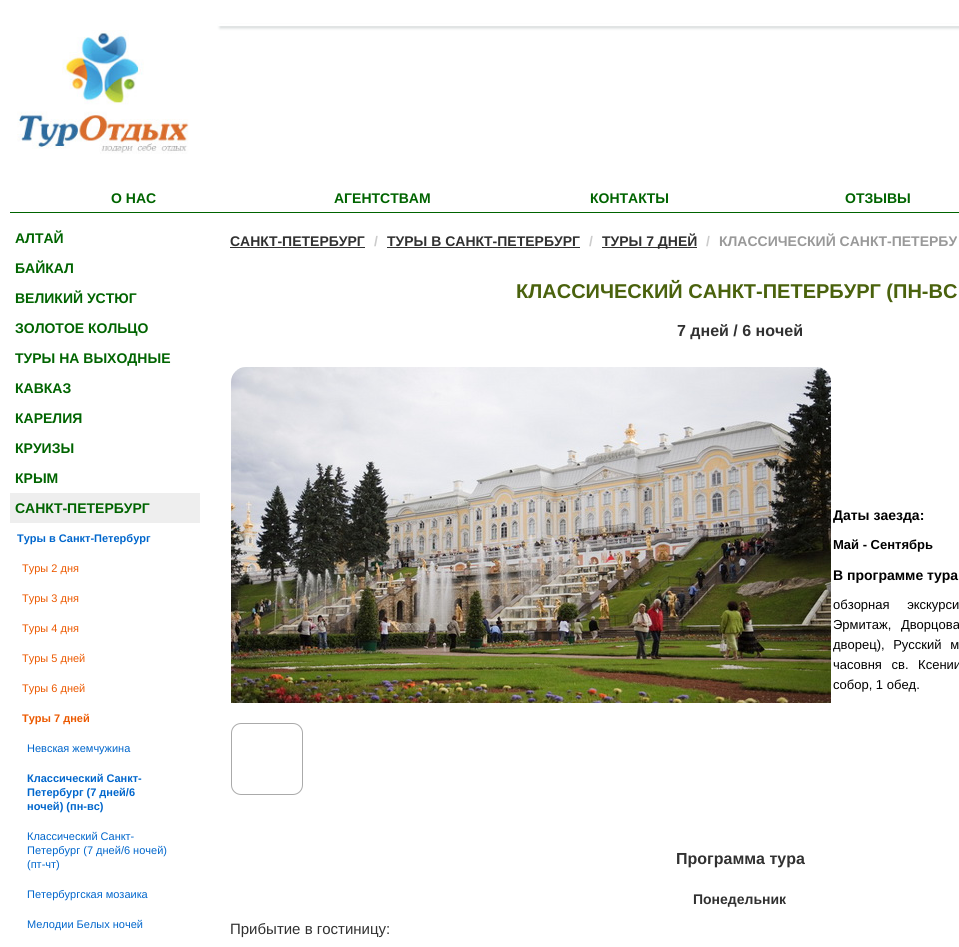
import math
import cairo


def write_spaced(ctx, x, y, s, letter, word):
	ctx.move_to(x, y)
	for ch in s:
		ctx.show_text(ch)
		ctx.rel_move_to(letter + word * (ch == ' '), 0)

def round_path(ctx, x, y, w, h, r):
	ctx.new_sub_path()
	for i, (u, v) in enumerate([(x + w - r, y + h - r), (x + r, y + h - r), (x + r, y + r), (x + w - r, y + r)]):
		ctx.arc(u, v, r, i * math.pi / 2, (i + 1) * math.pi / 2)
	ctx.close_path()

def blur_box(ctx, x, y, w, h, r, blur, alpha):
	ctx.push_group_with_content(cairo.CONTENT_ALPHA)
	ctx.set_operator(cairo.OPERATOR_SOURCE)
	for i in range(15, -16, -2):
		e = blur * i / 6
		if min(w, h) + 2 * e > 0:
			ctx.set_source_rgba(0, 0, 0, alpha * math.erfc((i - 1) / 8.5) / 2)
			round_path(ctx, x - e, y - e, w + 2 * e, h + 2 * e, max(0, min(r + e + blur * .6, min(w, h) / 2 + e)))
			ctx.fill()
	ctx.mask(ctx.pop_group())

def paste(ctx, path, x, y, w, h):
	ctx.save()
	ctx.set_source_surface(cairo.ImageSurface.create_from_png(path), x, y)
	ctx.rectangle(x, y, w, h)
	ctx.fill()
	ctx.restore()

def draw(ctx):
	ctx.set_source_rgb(1, 1, 1)
	ctx.paint()
	ctx.set_source_rgb(0.812, 0.835, 0.835)
	blur_box(ctx, 220, 26, 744, 2, 0, 1.5, 1)
	ctx.set_source_rgb(1, 1, 1)
	ctx.rectangle(218, 24, 741, 2)
	ctx.fill()
	paste(ctx, 'media/1.png', 17, 30, 172, 124)
	ctx.set_source_rgb(0, 0.392, 0)
	ctx.rectangle(10, 212, 949, 1)
	ctx.fill()
	ctx.select_font_face('Liberation Sans', cairo.FONT_SLANT_NORMAL, cairo.FONT_WEIGHT_BOLD)
	ctx.set_font_size(14)
	for x, y, s in [
		(111, 203, 'О НАС'),
		(334, 203, 'АГЕНТСТВАМ'),
		(590, 203, 'КОНТАКТЫ'),
		(845, 203, 'ОТЗЫВЫ'),
		(15, 243, 'АЛТАЙ'),
		(15, 273, 'БАЙКАЛ'),
		(15, 303, 'ВЕЛИКИЙ УСТЮГ'),
		(15, 333, 'ЗОЛОТОЕ КОЛЬЦО'),
		(15, 363, 'ТУРЫ НА ВЫХОДНЫЕ'),
		(15, 393, 'КАВКАЗ'),
		(15, 423, 'КАРЕЛИЯ'),
		(15, 453, 'КРУИЗЫ'),
		(15, 483, 'КРЫМ'),
	]:
		ctx.move_to(x, y)
		ctx.show_text(s)
	ctx.set_source_rgb(0.933, 0.933, 0.933)
	ctx.rectangle(10, 493, 190, 30)
	ctx.fill()
	ctx.set_source_rgb(0, 0.392, 0)
	ctx.move_to(15, 513)
	ctx.show_text('САНКТ-ПЕТЕРБУРГ')
	ctx.set_font_size(11)
	ctx.set_source_rgb(0, 0.4, 0.8)
	ctx.move_to(17, 542)
	ctx.show_text('Туры в Санкт-Петербург')
	ctx.select_font_face('Liberation Sans')
	ctx.set_source_rgb(0.922, 0.349, 0)
	for x, y, s in [
		(22, 572, 'Туры 2 дня'),
		(22, 602, 'Туры 3 дня'),
		(22, 632, 'Туры 4 дня'),
		(22, 662, 'Туры 5 дней'),
		(22, 692, 'Туры 6 дней'),
	]:
		ctx.move_to(x, y)
		ctx.show_text(s)
	ctx.select_font_face('Liberation Sans', cairo.FONT_SLANT_NORMAL, cairo.FONT_WEIGHT_BOLD)
	ctx.move_to(22, 722)
	ctx.show_text('Туры 7 дней')
	ctx.select_font_face('Liberation Sans')
	ctx.set_source_rgb(0, 0.4, 0.8)
	ctx.move_to(27, 752)
	ctx.show_text('Невская жемчужина')
	ctx.select_font_face('Liberation Sans', cairo.FONT_SLANT_NORMAL, cairo.FONT_WEIGHT_BOLD)
	for x, y, s in [
		(27, 782, 'Классический Санкт-'),
		(27, 796, 'Петербург (7 дней/6'),
		(27, 810, 'ночей) (пн-вс)'),
	]:
		ctx.move_to(x, y)
		ctx.show_text(s)
	ctx.select_font_face('Liberation Sans')
	for x, y, s in [
		(27, 840, 'Классический Санкт-'),
		(27, 854, 'Петербург (7 дней/6 ночей)'),
		(27, 868, '(пт-чт)'),
		(27, 898, 'Петербургская мозаика'),
		(27, 928, 'Мелодии Белых ночей'),
	]:
		ctx.move_to(x, y)
		ctx.show_text(s)
	ctx.select_font_face('Liberation Sans', cairo.FONT_SLANT_NORMAL, cairo.FONT_WEIGHT_BOLD)
	ctx.set_font_size(14)
	ctx.set_source_rgb(0.192, 0.192, 0.192)
	ctx.move_to(230, 246)
	ctx.show_text('САНКТ-ПЕТЕРБУРГ')
	ctx.rectangle(230, 247, 135, 1)
	ctx.fill()
	ctx.set_source_rgb(0.8, 0.8, 0.8)
	ctx.move_to(374, 246)
	ctx.show_text('/')
	ctx.set_source_rgb(0.192, 0.192, 0.192)
	ctx.move_to(387, 246)
	ctx.show_text('ТУРЫ В САНКТ-ПЕТЕРБУРГ')
	ctx.rectangle(387, 247, 193, 1)
	ctx.fill()
	ctx.set_source_rgb(0.8, 0.8, 0.8)
	ctx.move_to(589, 246)
	ctx.show_text('/')
	ctx.set_source_rgb(0.192, 0.192, 0.192)
	ctx.rectangle(602, 247, 95, 1)
	ctx.fill()
	ctx.move_to(602, 246)
	ctx.show_text('ТУРЫ 7 ДНЕЙ')
	ctx.set_source_rgb(0.8, 0.8, 0.8)
	ctx.move_to(706, 246)
	ctx.show_text('/')
	ctx.set_source_rgb(0.6, 0.6, 0.6)
	ctx.move_to(719, 246)
	ctx.show_text('КЛАССИЧЕСКИЙ САНКТ-ПЕТЕРБУ')
	ctx.set_font_size(20)
	ctx.set_source_rgb(0.29, 0.384, 0.051)
	ctx.move_to(516, 298)
	ctx.show_text('КЛАССИЧЕСКИЙ САНКТ-ПЕТЕРБУРГ (ПН-ВС')
	ctx.set_font_size(16)
	ctx.set_source_rgb(0.192, 0.192, 0.192)
	ctx.move_to(677, 336)
	ctx.show_text('7 дней / 6 ночей')
	paste(ctx, 'media/2.png', 231, 367, 600, 336)
	round_path(ctx, 231.5, 723.5, 71, 71, 9.5)
	ctx.set_source_rgb(0.667, 0.667, 0.667)
	ctx.set_line_width(1)
	ctx.stroke()
	ctx.set_font_size(14)
	ctx.set_source_rgb(0, 0, 0)
	ctx.move_to(833, 520)
	ctx.show_text('Даты заезда:')
	ctx.set_font_size(13)
	ctx.move_to(833, 549)
	ctx.show_text('Май - Сентябрь')
	ctx.set_font_size(14)
	ctx.move_to(833, 580)
	ctx.show_text('В программе тура')
	ctx.select_font_face('Liberation Sans')
	ctx.set_font_size(13)
	write_spaced(ctx, 833, 609, 'обзорная экскурси', 0, 14)
	write_spaced(ctx, 833, 629, 'Эрмитаж, Дворцова', 0, 6)
	write_spaced(ctx, 833, 649, 'дворец), Русский м', 0, 5)
	write_spaced(ctx, 833, 669, 'часовня св. Ксении', 0, 6)
	ctx.move_to(833, 689)
	ctx.show_text('собор, 1 обед.')
	ctx.select_font_face('Liberation Sans', cairo.FONT_SLANT_NORMAL, cairo.FONT_WEIGHT_BOLD)
	ctx.set_font_size(16)
	ctx.set_source_rgb(0.192, 0.192, 0.192)
	ctx.move_to(676, 864)
	ctx.show_text('Программа тура')
	ctx.set_font_size(14)
	ctx.move_to(693, 904)
	ctx.show_text('Понедельник')
	ctx.select_font_face('Liberation Sans')
	ctx.set_font_size(15)
	ctx.move_to(230, 934)
	ctx.show_text('Прибытие в гостиницу:')


surface = cairo.ImageSurface(cairo.FORMAT_RGB24, 959, 947)
ctx = cairo.Context(surface)
options = cairo.FontOptions()
options.set_hint_metrics(cairo.HINT_METRICS_OFF)
options.set_hint_style(cairo.HINT_STYLE_NONE)
ctx.set_font_options(options)
ctx.set_miter_limit(4)
draw(ctx)
surface.write_to_png('image.png')
